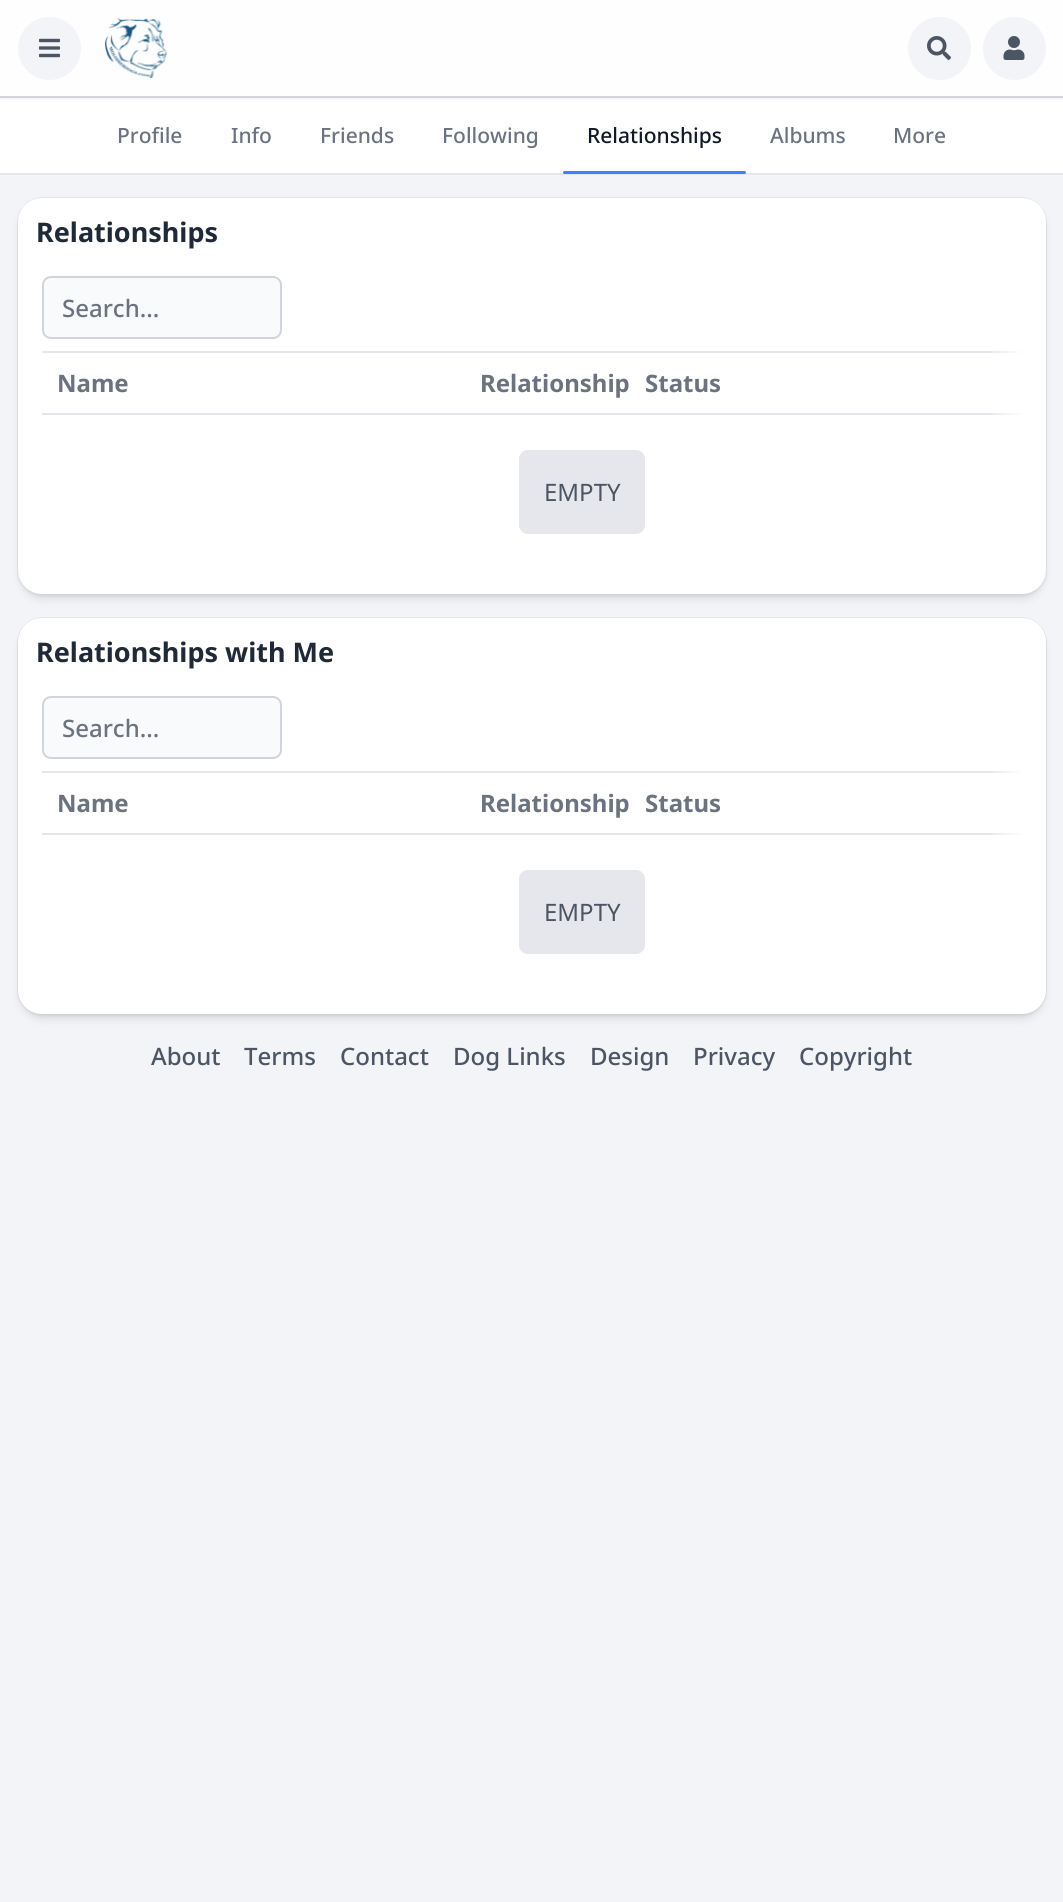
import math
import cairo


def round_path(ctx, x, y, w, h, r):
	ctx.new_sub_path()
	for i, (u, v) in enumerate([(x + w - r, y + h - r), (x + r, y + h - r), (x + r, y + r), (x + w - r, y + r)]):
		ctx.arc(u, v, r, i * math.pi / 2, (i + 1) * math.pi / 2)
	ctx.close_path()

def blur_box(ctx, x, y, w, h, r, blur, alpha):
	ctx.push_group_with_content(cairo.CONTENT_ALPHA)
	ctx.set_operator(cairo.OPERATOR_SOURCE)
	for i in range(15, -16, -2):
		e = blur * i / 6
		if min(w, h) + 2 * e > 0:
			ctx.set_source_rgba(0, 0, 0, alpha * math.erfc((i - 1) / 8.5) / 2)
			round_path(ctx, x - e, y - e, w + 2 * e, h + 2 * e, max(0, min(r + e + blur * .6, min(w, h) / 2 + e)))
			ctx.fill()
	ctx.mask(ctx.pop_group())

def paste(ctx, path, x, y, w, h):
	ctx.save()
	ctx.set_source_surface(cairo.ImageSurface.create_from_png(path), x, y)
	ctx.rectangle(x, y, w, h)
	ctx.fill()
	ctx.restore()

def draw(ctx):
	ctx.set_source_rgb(0.953, 0.957, 0.965)
	ctx.paint()
	ctx.set_source_rgb(1, 1, 1)
	ctx.rectangle(0, 98, 1063, 75)
	ctx.fill()
	ctx.save()
	ctx.rectangle(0, 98, 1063, 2)
	ctx.clip()
	ctx.set_source_rgb(0, 0, 0)
	blur_box(ctx, 0, 2, 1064, 96, 0, 2, 0.1)
	ctx.restore()
	ctx.rectangle(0, 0, 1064, 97)
	ctx.set_source_rgb(0.82, 0.835, 0.859)
	ctx.stroke()
	ctx.set_source_rgba(1, 1, 1, 0.95)
	ctx.rectangle(0, 0, 1063, 96)
	ctx.fill()
	ctx.set_source_rgb(0.953, 0.957, 0.965)
	ctx.arc(49.5, 48.5, 31.5, 0, 2 * math.pi)
	ctx.fill()
	paste(ctx, 'media/1.png', 39, 38, 21, 20)
	paste(ctx, 'media/2.png', 105, 18, 62, 60)
	ctx.arc(939.5, 48.5, 31.5, 0, 2 * math.pi)
	ctx.fill()
	paste(ctx, 'media/3.png', 927, 36, 24, 24)
	ctx.arc(1014.5, 48.5, 31.5, 0, 2 * math.pi)
	ctx.fill()
	paste(ctx, 'media/4.png', 1003, 36, 22, 24)
	ctx.set_source_rgb(0.898, 0.906, 0.922)
	ctx.rectangle(0, 173, 1063, 2)
	ctx.fill()
	ctx.select_font_face('Noto Sans Medium')
	ctx.set_font_size(21)
	ctx.set_source_rgb(0.42, 0.447, 0.502)
	for x, y, s in [
		(117, 143, 'Profile'),
		(231, 143, 'Info'),
		(320, 143, 'Friends'),
		(442, 143, 'Following'),
	]:
		ctx.move_to(x, y)
		ctx.show_text(s)
	ctx.set_source_rgb(0.067, 0.094, 0.153)
	ctx.move_to(587, 143)
	ctx.show_text('Relationships')
	ctx.set_source_rgb(0.231, 0.51, 0.965)
	round_path(ctx, 563, 171, 183, 3, 1.5)
	ctx.fill()
	ctx.set_source_rgb(0.42, 0.447, 0.502)
	ctx.move_to(770, 143)
	ctx.show_text('Albums')
	ctx.move_to(893, 143)
	ctx.show_text('More')
	ctx.set_source_rgb(0, 0, 0)
	blur_box(ctx, 21, 204, 1022, 390, 21, 3, 0.1)
	blur_box(ctx, 20, 206, 1024, 393, 23, 4.5, 0.1)
	round_path(ctx, 18, 198, 1028, 397, 25)
	ctx.set_source_rgba(0.82, 0.835, 0.859, 0.5)
	ctx.stroke()
	ctx.set_source_rgb(1, 1, 1)
	round_path(ctx, 18, 198, 1028, 396, 24)
	ctx.fill()
	ctx.select_font_face('Noto Sans', cairo.FONT_SLANT_NORMAL, cairo.FONT_WEIGHT_BOLD)
	ctx.set_font_size(27)
	ctx.set_source_rgb(0.122, 0.161, 0.216)
	ctx.move_to(36, 242)
	ctx.show_text('Relationships')
	ctx.set_source_rgb(0.976, 0.98, 0.984)
	round_path(ctx, 43, 277, 238, 61, 8)
	ctx.fill_preserve()
	ctx.set_source_rgb(0.82, 0.835, 0.859)
	ctx.stroke()
	ctx.select_font_face('Noto Sans Medium')
	ctx.set_font_size(24)
	ctx.set_source_rgb(0.42, 0.447, 0.502)
	ctx.move_to(62, 317)
	ctx.show_text('Search...')
	ctx.set_source_rgb(0.898, 0.906, 0.922)
	ctx.rectangle(42, 351, 980, 2)
	ctx.fill()
	ctx.select_font_face('Noto Sans', cairo.FONT_SLANT_NORMAL, cairo.FONT_WEIGHT_BOLD)
	ctx.set_source_rgb(0.42, 0.447, 0.502)
	for x, y, s in [
		(57, 392, 'Name'),
		(480, 392, 'Relationship'),
		(645, 392, 'Status'),
	]:
		ctx.move_to(x, y)
		ctx.show_text(s)
	ctx.set_source_rgb(0.898, 0.906, 0.922)
	ctx.rectangle(42, 413, 980, 2)
	ctx.fill()
	round_path(ctx, 519, 450, 126, 84, 9)
	ctx.fill()
	ctx.select_font_face('Noto Sans')
	ctx.set_source_rgb(0.294, 0.333, 0.388)
	ctx.move_to(544, 501)
	ctx.show_text('EMPTY')
	gradient = cairo.LinearGradient(987, 461, 1023, 461)
	gradient.add_color_stop_rgba(0, 1, 1, 1, 0)
	gradient.add_color_stop_rgba(1, 1, 1, 1, 1)
	ctx.set_source(gradient)
	ctx.rectangle(991, 351, 31, 64)
	ctx.fill()
	ctx.set_source_rgb(0, 0, 0)
	blur_box(ctx, 21, 624, 1022, 390, 21, 3, 0.1)
	blur_box(ctx, 20, 626, 1024, 393, 23, 4.5, 0.1)
	round_path(ctx, 18, 618, 1028, 397, 25)
	ctx.set_source_rgba(0.82, 0.835, 0.859, 0.5)
	ctx.stroke()
	ctx.set_source_rgb(1, 1, 1)
	round_path(ctx, 18, 618, 1028, 396, 24)
	ctx.fill()
	ctx.select_font_face('Noto Sans', cairo.FONT_SLANT_NORMAL, cairo.FONT_WEIGHT_BOLD)
	ctx.set_font_size(27)
	ctx.set_source_rgb(0.122, 0.161, 0.216)
	ctx.move_to(36, 662)
	ctx.show_text('Relationships with Me')
	ctx.set_source_rgb(0.976, 0.98, 0.984)
	round_path(ctx, 43, 697, 238, 61, 8)
	ctx.fill_preserve()
	ctx.set_source_rgb(0.82, 0.835, 0.859)
	ctx.stroke()
	ctx.select_font_face('Noto Sans Medium')
	ctx.set_font_size(24)
	ctx.set_source_rgb(0.42, 0.447, 0.502)
	ctx.move_to(62, 737)
	ctx.show_text('Search...')
	ctx.set_source_rgb(0.898, 0.906, 0.922)
	ctx.rectangle(42, 771, 980, 2)
	ctx.fill()
	ctx.select_font_face('Noto Sans', cairo.FONT_SLANT_NORMAL, cairo.FONT_WEIGHT_BOLD)
	ctx.set_source_rgb(0.42, 0.447, 0.502)
	for x, y, s in [
		(57, 812, 'Name'),
		(480, 812, 'Relationship'),
		(645, 812, 'Status'),
	]:
		ctx.move_to(x, y)
		ctx.show_text(s)
	ctx.set_source_rgb(0.898, 0.906, 0.922)
	ctx.rectangle(42, 833, 980, 2)
	ctx.fill()
	round_path(ctx, 519, 870, 126, 84, 9)
	ctx.fill()
	ctx.select_font_face('Noto Sans')
	ctx.set_source_rgb(0.294, 0.333, 0.388)
	ctx.move_to(544, 921)
	ctx.show_text('EMPTY')
	gradient = cairo.LinearGradient(987, 881, 1023, 881)
	gradient.add_color_stop_rgba(0, 1, 1, 1, 0)
	gradient.add_color_stop_rgba(1, 1, 1, 1, 1)
	ctx.set_source(gradient)
	ctx.rectangle(991, 771, 31, 64)
	ctx.fill()
	ctx.select_font_face('Noto Sans Medium')
	ctx.set_source_rgb(0.294, 0.333, 0.388)
	for x, y, s in [
		(151, 1065, 'About'),
		(244, 1065, 'Terms'),
		(340, 1065, 'Contact'),
		(453, 1065, 'Dog Links'),
		(590, 1065, 'Design'),
		(693, 1065, 'Privacy'),
		(799, 1065, 'Copyright'),
	]:
		ctx.move_to(x, y)
		ctx.show_text(s)


surface = cairo.ImageSurface(cairo.FORMAT_RGB24, 1063, 1902)
ctx = cairo.Context(surface)
options = cairo.FontOptions()
options.set_hint_metrics(cairo.HINT_METRICS_OFF)
options.set_hint_style(cairo.HINT_STYLE_NONE)
ctx.set_font_options(options)
ctx.set_miter_limit(4)
draw(ctx)
surface.write_to_png('image.png')
